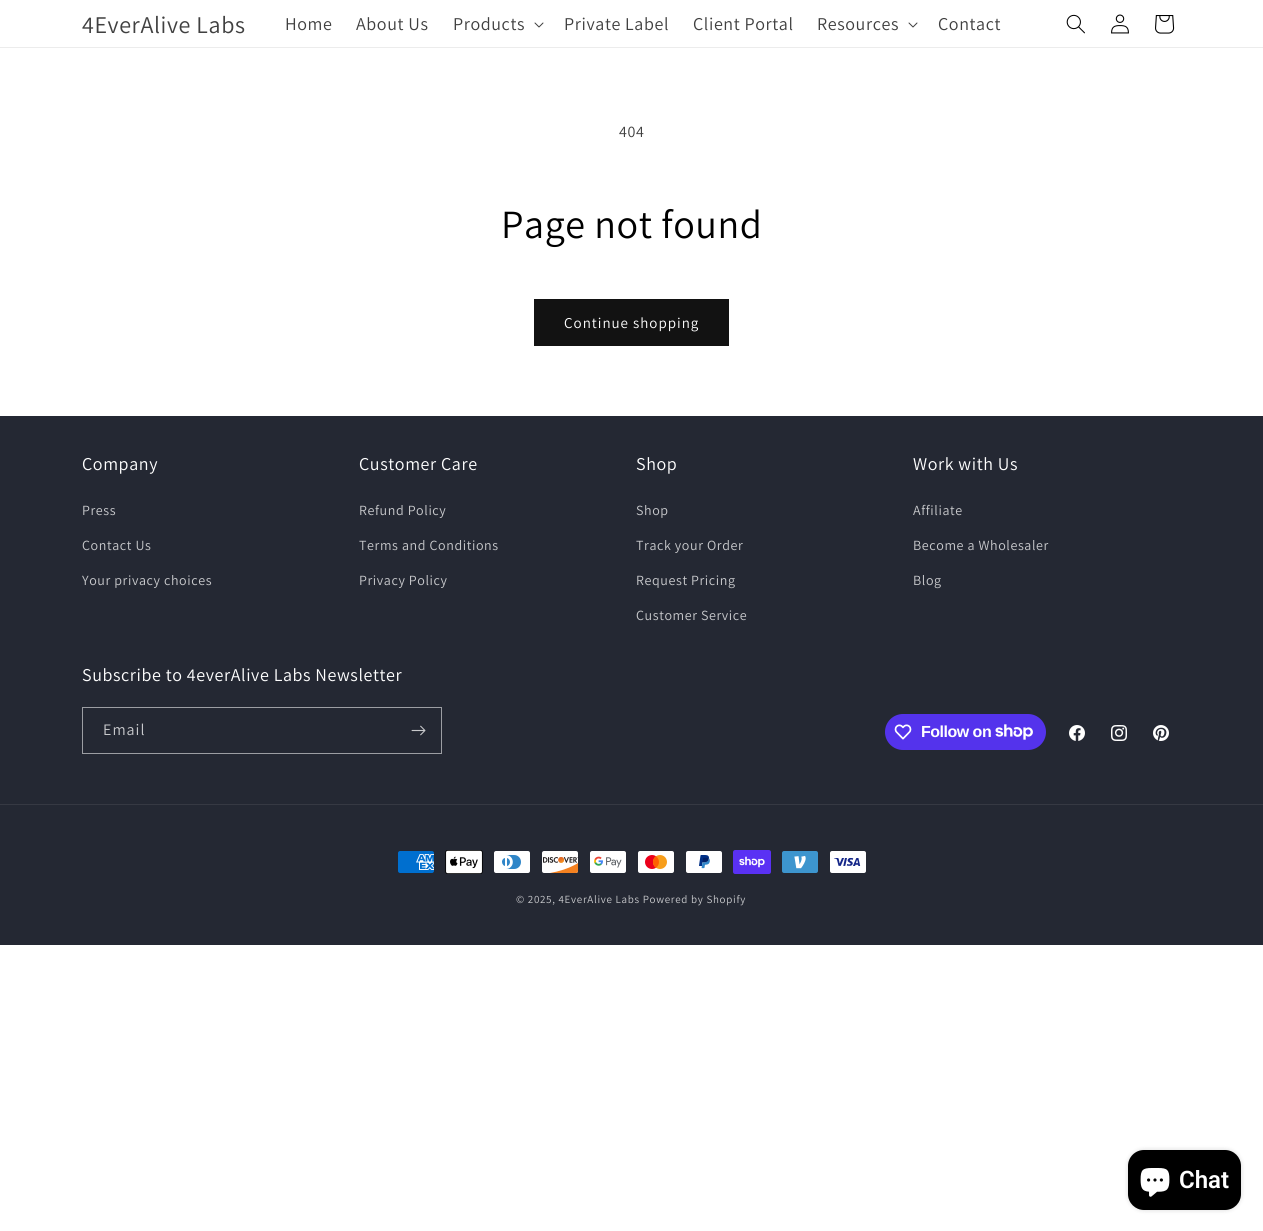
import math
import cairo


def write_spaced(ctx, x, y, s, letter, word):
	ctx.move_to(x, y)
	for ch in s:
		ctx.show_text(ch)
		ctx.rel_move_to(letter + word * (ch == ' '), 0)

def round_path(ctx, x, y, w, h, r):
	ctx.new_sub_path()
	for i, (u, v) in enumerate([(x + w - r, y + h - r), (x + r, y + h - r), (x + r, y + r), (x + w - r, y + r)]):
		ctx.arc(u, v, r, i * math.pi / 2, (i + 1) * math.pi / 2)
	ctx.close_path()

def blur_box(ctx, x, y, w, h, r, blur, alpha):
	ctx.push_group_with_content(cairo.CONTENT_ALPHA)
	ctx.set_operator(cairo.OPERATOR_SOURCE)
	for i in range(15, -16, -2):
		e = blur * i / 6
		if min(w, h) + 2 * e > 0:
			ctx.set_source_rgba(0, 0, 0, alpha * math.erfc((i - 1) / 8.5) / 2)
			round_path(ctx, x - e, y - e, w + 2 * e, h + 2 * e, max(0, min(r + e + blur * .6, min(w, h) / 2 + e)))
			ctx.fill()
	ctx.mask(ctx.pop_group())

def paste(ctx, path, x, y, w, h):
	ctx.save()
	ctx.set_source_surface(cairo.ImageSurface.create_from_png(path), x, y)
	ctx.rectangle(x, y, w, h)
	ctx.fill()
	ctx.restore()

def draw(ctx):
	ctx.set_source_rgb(1, 1, 1)
	ctx.paint()
	ctx.set_source_rgb(0.922, 0.922, 0.922)
	ctx.rectangle(0, 47, 1263, 1)
	ctx.fill()
	ctx.select_font_face('Assistant')
	ctx.set_font_size(24)
	ctx.set_source_rgb(0.251, 0.251, 0.251)
	write_spaced(ctx, 82, 33, '4EverAlive Labs', 0.6, 0)
	ctx.set_font_size(18)
	for x, y, s in [
		(285, 30, 'Home'),
		(356, 30, 'About Us'),
		(453, 30, 'Products'),
	]:
		write_spaced(ctx, x, y, s, 0.6, 0)
	paste(ctx, 'media/1.png', 534, 22, 10, 6)
	for x, y, s in [
		(564, 30, 'Private Label'),
		(693, 30, 'Client Portal'),
		(817, 30, 'Resources'),
	]:
		write_spaced(ctx, x, y, s, 0.6, 0)
	paste(ctx, 'media/1.png', 908, 22, 10, 6)
	write_spaced(ctx, 938, 30, 'Contact', 0.6, 0)
	paste(ctx, 'media/2.png', 1066, 14, 19, 20)
	paste(ctx, 'media/3.png', 1111, 14, 18, 20)
	paste(ctx, 'media/4.png', 1155, 15, 20, 19)
	ctx.set_font_size(16)
	write_spaced(ctx, 619, 137, '404', 0.6, 0)
	ctx.set_font_size(40)
	ctx.set_source_rgb(0, 0, 0)
	write_spaced(ctx, 501, 238, 'Page not found', 0.6, 0)
	ctx.set_source_rgb(0.071, 0.071, 0.071)
	ctx.rectangle(534, 299, 195, 47)
	ctx.fill()
	ctx.set_font_size(15)
	ctx.set_source_rgb(1, 1, 1)
	write_spaced(ctx, 564, 328, 'Continue shopping', 1, 0)
	ctx.set_source_rgb(0.141, 0.157, 0.2)
	ctx.rectangle(0, 416, 1263, 529)
	ctx.fill()
	ctx.set_font_size(18)
	ctx.set_source_rgb(1, 1, 1)
	write_spaced(ctx, 82, 470, 'Company', 0.6, 0)
	ctx.set_font_size(14)
	ctx.set_source_rgb(0.784, 0.788, 0.8)
	for x, y, s in [
		(82, 515, 'Press'),
		(82, 550, 'Contact Us'),
		(82, 585, 'Your privacy choices'),
	]:
		write_spaced(ctx, x, y, s, 0.6, 0)
	ctx.set_font_size(18)
	ctx.set_source_rgb(1, 1, 1)
	write_spaced(ctx, 359, 470, 'Customer Care', 0.6, 0)
	ctx.set_font_size(14)
	ctx.set_source_rgb(0.784, 0.788, 0.8)
	for x, y, s in [
		(359, 515, 'Refund Policy'),
		(359, 550, 'Terms and Conditions'),
		(359, 585, 'Privacy Policy'),
	]:
		write_spaced(ctx, x, y, s, 0.6, 0)
	ctx.set_font_size(18)
	ctx.set_source_rgb(1, 1, 1)
	write_spaced(ctx, 636, 470, 'Shop', 0.6, 0)
	ctx.set_font_size(14)
	ctx.set_source_rgb(0.784, 0.788, 0.8)
	for x, y, s in [
		(636, 515, 'Shop'),
		(636, 550, 'Track your Order'),
		(636, 585, 'Request Pricing'),
		(636, 620, 'Customer Service'),
	]:
		write_spaced(ctx, x, y, s, 0.6, 0)
	ctx.set_font_size(18)
	ctx.set_source_rgb(1, 1, 1)
	write_spaced(ctx, 913, 470, 'Work with Us', 0.6, 0)
	ctx.set_font_size(14)
	ctx.set_source_rgb(0.784, 0.788, 0.8)
	for x, y, s in [
		(913, 515, 'Affiliate'),
		(913, 550, 'Become a Wholesaler'),
		(913, 585, 'Blog'),
	]:
		write_spaced(ctx, x, y, s, 0.6, 0)
	ctx.set_font_size(18)
	ctx.set_source_rgb(1, 1, 1)
	write_spaced(ctx, 82, 681, 'Subscribe to 4everAlive Labs Newsletter', 0.6, 0)
	ctx.rectangle(82.5, 707.5, 359, 46)
	ctx.set_source_rgb(0.612, 0.62, 0.639)
	ctx.set_line_width(1)
	ctx.stroke()
	ctx.set_font_size(16)
	ctx.set_source_rgb(0.784, 0.788, 0.8)
	write_spaced(ctx, 103, 735, 'Email', 1, 0)
	paste(ctx, 'media/5.png', 411, 725, 15, 11)
	ctx.set_source_rgb(0.329, 0.2, 0.922)
	round_path(ctx, 885, 714, 161, 36, 18)
	ctx.fill()
	paste(ctx, 'media/6.png', 894, 724, 18, 16)
	ctx.select_font_face('Liberation Sans', cairo.FONT_SLANT_NORMAL, cairo.FONT_WEIGHT_BOLD)
	ctx.set_source_rgb(1, 1, 1)
	write_spaced(ctx, 921, 737, 'Follow on', -0.5, 0)
	paste(ctx, 'media/7.png', 995, 724, 38, 16)
	paste(ctx, 'media/8.png', 1069, 725, 16, 16)
	paste(ctx, 'media/9.png', 1111, 725, 16, 16)
	paste(ctx, 'media/10.png', 1153, 725, 16, 16)
	ctx.set_source_rgb(0.212, 0.224, 0.263)
	ctx.rectangle(0, 804, 1263, 1)
	ctx.fill()
	paste(ctx, 'media/11.png', 398, 851, 36, 22)
	paste(ctx, 'media/12.png', 445, 850, 38, 24)
	paste(ctx, 'media/13.png', 494, 851, 36, 22)
	paste(ctx, 'media/14.png', 542, 851, 36, 22)
	paste(ctx, 'media/15.png', 590, 851, 36, 22)
	paste(ctx, 'media/16.png', 638, 851, 36, 22)
	paste(ctx, 'media/17.png', 686, 851, 36, 22)
	paste(ctx, 'media/18.png', 733, 850, 38, 24)
	paste(ctx, 'media/19.png', 782, 851, 36, 22)
	paste(ctx, 'media/20.png', 830, 851, 36, 22)
	ctx.select_font_face('Assistant')
	ctx.set_font_size(11)
	ctx.set_source_rgb(0.784, 0.788, 0.8)
	write_spaced(ctx, 516, 903, '© 2025, 4EverAlive Labs Powered by Shopify', 0.7, 0)
	ctx.set_source_rgb(0, 0, 0)
	blur_box(ctx, 1128, 1150, 113, 60, 16, 2.5, 0.15)
	ctx.set_source_rgb(0, 0, 0)
	round_path(ctx, 1128, 1150, 113, 60, 16)
	ctx.fill()
	paste(ctx, 'media/21.png', 1140, 1168, 30, 29)
	ctx.select_font_face('Roboto SemiBold')
	ctx.set_font_size(24)
	ctx.set_source_rgb(1, 1, 1)
	ctx.move_to(1179, 1188)
	ctx.show_text('Chat')


surface = cairo.ImageSurface(cairo.FORMAT_RGB24, 1263, 1231)
ctx = cairo.Context(surface)
options = cairo.FontOptions()
options.set_hint_metrics(cairo.HINT_METRICS_OFF)
options.set_hint_style(cairo.HINT_STYLE_NONE)
ctx.set_font_options(options)
ctx.set_miter_limit(4)
draw(ctx)
surface.write_to_png('image.png')
